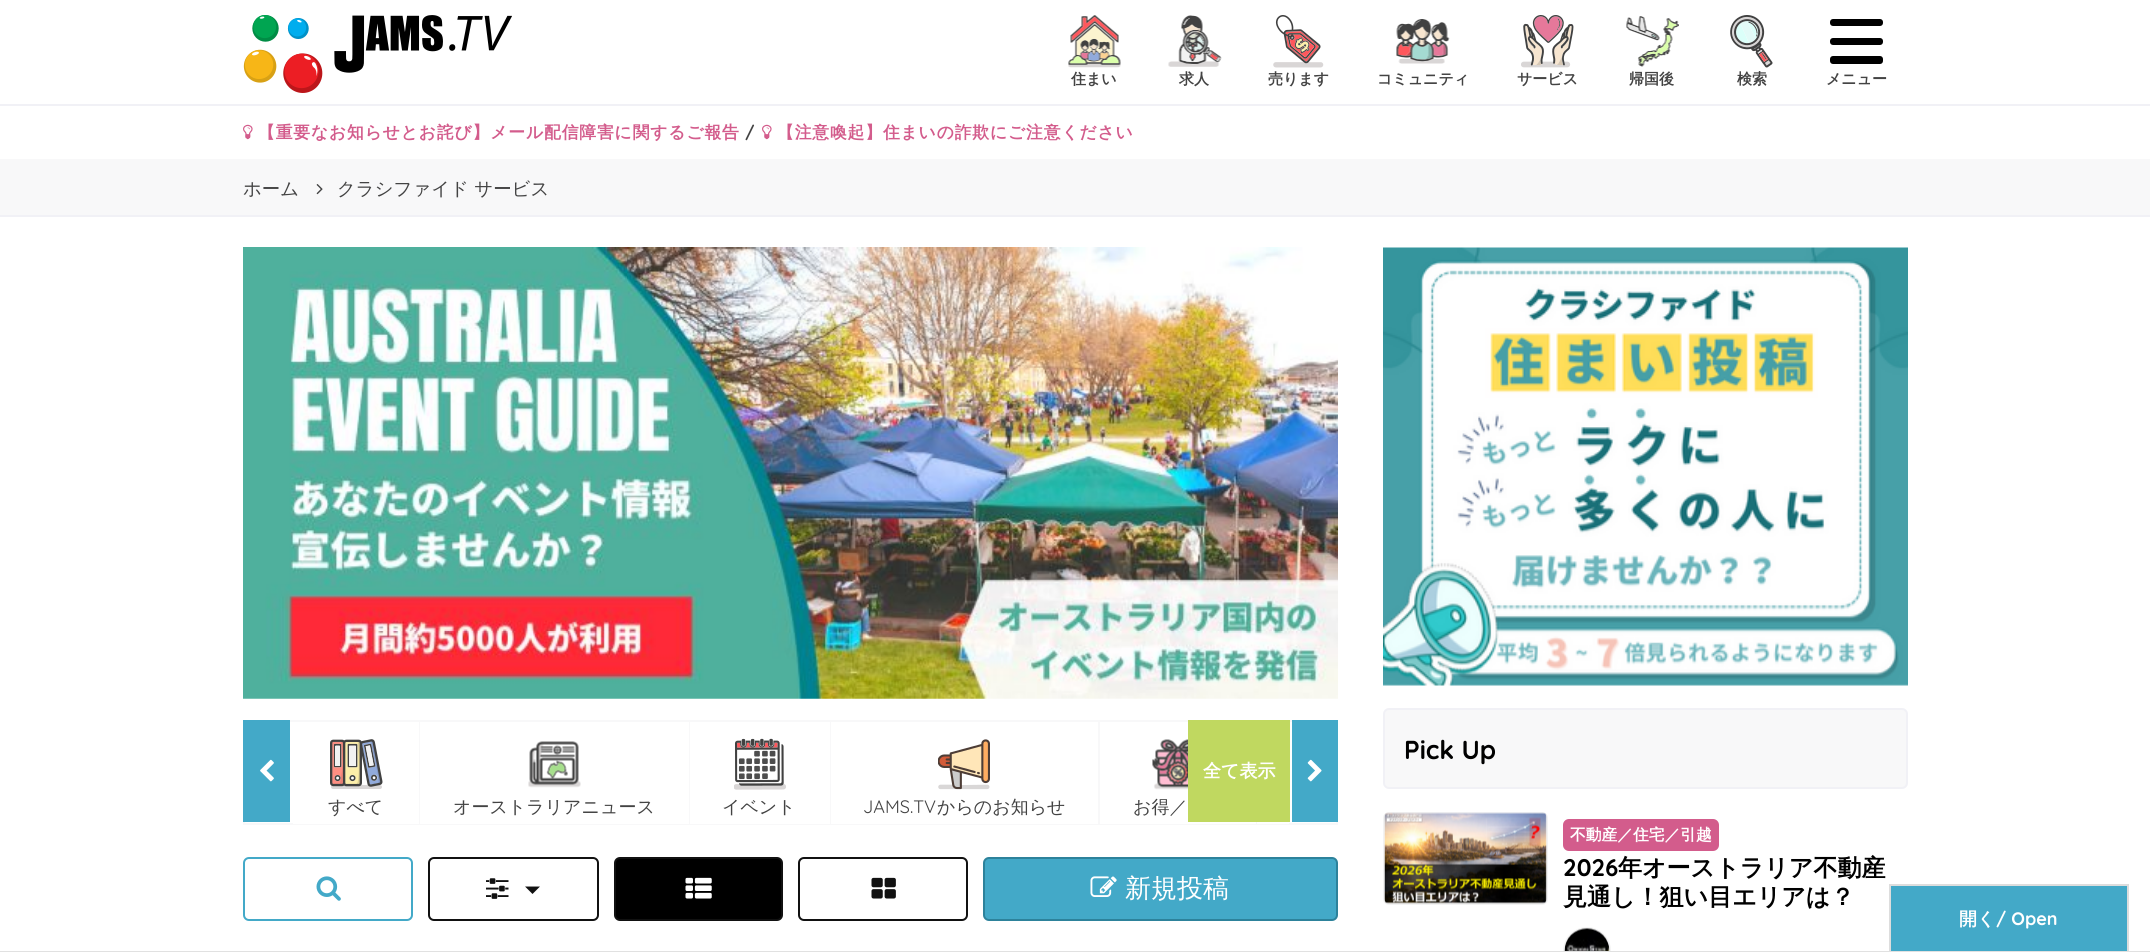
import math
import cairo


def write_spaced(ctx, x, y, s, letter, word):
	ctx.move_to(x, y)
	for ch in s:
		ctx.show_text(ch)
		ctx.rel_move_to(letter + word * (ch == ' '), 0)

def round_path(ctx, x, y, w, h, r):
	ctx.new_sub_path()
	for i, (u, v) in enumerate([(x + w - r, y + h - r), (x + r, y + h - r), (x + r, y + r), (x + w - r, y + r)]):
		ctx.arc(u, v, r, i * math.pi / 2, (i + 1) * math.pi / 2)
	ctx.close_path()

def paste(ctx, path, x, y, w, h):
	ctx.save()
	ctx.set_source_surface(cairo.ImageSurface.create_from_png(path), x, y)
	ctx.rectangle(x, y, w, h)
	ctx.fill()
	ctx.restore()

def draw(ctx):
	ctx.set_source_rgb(1, 1, 1)
	ctx.paint()
	ctx.set_source_rgb(0.945, 0.945, 0.961)
	ctx.rectangle(0, 104, 2150, 2)
	ctx.fill()
	paste(ctx, 'media/1.png', 243, 15, 269, 78)
	paste(ctx, 'media/2.png', 1068, 15, 53, 53)
	ctx.select_font_face('WenQuanYi Zen Hei', cairo.FONT_SLANT_NORMAL, cairo.FONT_WEIGHT_BOLD)
	ctx.set_font_size(15)
	ctx.set_source_rgb(0.263, 0.263, 0.263)
	ctx.move_to(1071, 84)
	ctx.show_text('住まい')
	paste(ctx, 'media/3.png', 1168, 15, 54, 52)
	ctx.move_to(1179, 84)
	ctx.show_text('求人')
	paste(ctx, 'media/4.png', 1273, 15, 51, 53)
	ctx.move_to(1268, 84)
	ctx.show_text('売ります')
	paste(ctx, 'media/5.png', 1396, 19, 54, 45)
	ctx.move_to(1377, 84)
	ctx.show_text('コミュニティ')
	paste(ctx, 'media/6.png', 1521, 15, 53, 53)
	ctx.move_to(1517, 84)
	ctx.show_text('サービス')
	paste(ctx, 'media/7.png', 1626, 16, 53, 51)
	ctx.move_to(1629, 84)
	ctx.show_text('帰国後')
	paste(ctx, 'media/8.png', 1730, 15, 43, 53)
	ctx.move_to(1737, 84)
	ctx.show_text('検索')
	ctx.set_source_rgb(0, 0, 0)
	round_path(ctx, 1830, 19, 53, 7, 3)
	ctx.fill()
	round_path(ctx, 1830, 38, 53, 7, 3)
	ctx.fill()
	round_path(ctx, 1830, 56, 53, 8, 3)
	ctx.fill()
	ctx.set_source_rgb(0.263, 0.263, 0.263)
	ctx.move_to(1826, 84)
	ctx.show_text('メニュー')
	paste(ctx, 'media/9.png', 243, 124, 10, 16)
	ctx.set_font_size(16.8)
	ctx.set_source_rgb(0.827, 0.361, 0.549)
	write_spaced(ctx, 258, 138, '【重要なお知らせとお詫び】メール配信障害に関するご報告', 0.85, 0)
	ctx.select_font_face('Quicksand', cairo.FONT_SLANT_NORMAL, cairo.FONT_WEIGHT_BOLD)
	ctx.set_source_rgb(0.263, 0.263, 0.263)
	write_spaced(ctx, 745, 138, '/', 0.85, 0)
	paste(ctx, 'media/9.png', 762, 124, 10, 16)
	ctx.select_font_face('WenQuanYi Zen Hei', cairo.FONT_SLANT_NORMAL, cairo.FONT_WEIGHT_BOLD)
	ctx.set_source_rgb(0.827, 0.361, 0.549)
	write_spaced(ctx, 777, 138, '【注意喚起】住まいの詐欺にご注意ください', 0.85, 0)
	ctx.set_source_rgb(0.969, 0.969, 0.976)
	ctx.rectangle(0, 159, 2150, 56)
	ctx.fill()
	ctx.set_source_rgb(0.945, 0.945, 0.961)
	ctx.rectangle(0, 215, 2150, 2)
	ctx.fill()
	ctx.select_font_face('WenQuanYi Zen Hei Medium')
	ctx.set_font_size(18.4)
	ctx.set_source_rgb(0.263, 0.263, 0.263)
	ctx.move_to(243, 195)
	ctx.show_text('ホーム')
	paste(ctx, 'media/10.png', 316, 184, 7, 11)
	ctx.move_to(337, 195)
	ctx.show_text('クラシファイド サービス')
	paste(ctx, 'media/11.png', 243, 247, 1095, 452)
	ctx.rectangle(244, 721, 1093, 103)
	ctx.set_source_rgb(0.969, 0.969, 0.976)
	ctx.stroke()
	ctx.set_source_rgb(0.263, 0.663, 0.784)
	ctx.rectangle(243, 720, 47, 102)
	ctx.fill()
	paste(ctx, 'media/12.png', 260, 759, 14, 23)
	ctx.set_source_rgb(0.753, 0.847, 0.376)
	ctx.rectangle(1188, 720, 102, 102)
	ctx.fill()
	ctx.select_font_face('WenQuanYi Zen Hei', cairo.FONT_SLANT_NORMAL, cairo.FONT_WEIGHT_BOLD)
	ctx.set_font_size(18)
	ctx.set_source_rgb(1, 1, 1)
	ctx.move_to(1203, 777)
	ctx.show_text('全て表示')
	ctx.set_source_rgb(0.263, 0.663, 0.784)
	ctx.rectangle(1292, 720, 46, 102)
	ctx.fill()
	paste(ctx, 'media/13.png', 1307, 759, 15, 23)
	ctx.set_source_rgb(1, 1, 1)
	ctx.rectangle(293, 823, 126, 1)
	ctx.fill()
	ctx.set_source_rgb(0.969, 0.969, 0.976)
	ctx.rectangle(419, 722, 1, 102)
	ctx.fill()
	paste(ctx, 'media/14.png', 330, 739, 53, 50)
	ctx.select_font_face('WenQuanYi Zen Hei Medium')
	ctx.set_source_rgb(0.263, 0.263, 0.263)
	ctx.move_to(328, 813)
	ctx.show_text('すべて')
	ctx.set_source_rgb(1, 1, 1)
	ctx.rectangle(420, 823, 269, 1)
	ctx.fill()
	ctx.set_source_rgb(0.969, 0.969, 0.976)
	ctx.rectangle(689, 722, 1, 102)
	ctx.fill()
	paste(ctx, 'media/15.png', 528, 741, 53, 47)
	ctx.set_source_rgb(0.263, 0.263, 0.263)
	ctx.move_to(453, 813)
	ctx.show_text('オーストラリアニュース')
	ctx.set_source_rgb(1, 1, 1)
	ctx.rectangle(690, 823, 140, 1)
	ctx.fill()
	ctx.set_source_rgb(0.969, 0.969, 0.976)
	ctx.rectangle(830, 722, 1, 102)
	ctx.fill()
	paste(ctx, 'media/16.png', 734, 738, 52, 52)
	ctx.set_source_rgb(0.263, 0.263, 0.263)
	ctx.move_to(722, 813)
	ctx.show_text('イベント')
	ctx.set_source_rgb(1, 1, 1)
	ctx.rectangle(831, 823, 267, 1)
	ctx.fill()
	ctx.set_source_rgb(0.969, 0.969, 0.976)
	ctx.rectangle(1098, 722, 2, 102)
	ctx.fill()
	paste(ctx, 'media/17.png', 938, 739, 52, 51)
	ctx.select_font_face('Quicksand')
	ctx.set_source_rgb(0.263, 0.263, 0.263)
	ctx.move_to(863, 813)
	ctx.show_text('JAMS.TV')
	ctx.select_font_face('WenQuanYi Zen Hei Medium')
	ctx.move_to(937, 813)
	ctx.show_text('からのお知らせ')
	ctx.set_source_rgb(1, 1, 1)
	ctx.rectangle(1100, 823, 156, 1)
	ctx.fill()
	ctx.set_source_rgb(0.969, 0.969, 0.976)
	ctx.rectangle(1256, 822, 1, 2)
	ctx.fill()
	paste(ctx, 'media/18.png', 1152, 739, 36, 51)
	ctx.set_source_rgb(0.263, 0.263, 0.263)
	ctx.move_to(1133, 813)
	ctx.show_text('お得／')
	ctx.set_source_rgb(1, 1, 1)
	ctx.rectangle(1257, 823, 32, 1)
	ctx.fill()
	round_path(ctx, 244, 858, 168, 62, 5)
	ctx.set_source_rgb(0.263, 0.663, 0.784)
	ctx.stroke()
	paste(ctx, 'media/19.png', 316, 876, 25, 25)
	round_path(ctx, 429, 858, 169, 62, 5)
	ctx.set_source_rgb(0.067, 0.067, 0.067)
	ctx.stroke()
	paste(ctx, 'media/20.png', 486, 878, 23, 21)
	ctx.new_path()
	ctx.move_to(525, 886.5)
	ctx.line_to(540, 886.5)
	ctx.line_to(532.5, 894)
	ctx.close_path()
	ctx.fill()
	ctx.set_source_rgb(0, 0, 0)
	round_path(ctx, 615, 858, 167, 62, 5)
	ctx.fill_preserve()
	ctx.set_source_rgb(0.067, 0.067, 0.067)
	ctx.stroke()
	paste(ctx, 'media/21.png', 685, 877, 27, 22)
	round_path(ctx, 799, 858, 168, 62, 5)
	ctx.stroke()
	paste(ctx, 'media/22.png', 871, 877, 25, 22)
	ctx.set_source_rgb(0.263, 0.663, 0.784)
	round_path(ctx, 984, 858, 353, 62, 5)
	ctx.fill_preserve()
	ctx.set_source_rgb(0.176, 0.51, 0.608)
	ctx.stroke()
	paste(ctx, 'media/23.png', 1090, 876, 27, 21)
	ctx.set_font_size(26)
	ctx.set_source_rgb(1, 1, 1)
	ctx.move_to(1125, 897)
	ctx.show_text('新規投稿')
	paste(ctx, 'media/24.png', 1383, 247, 525, 439)
	ctx.set_source_rgb(0.969, 0.969, 0.976)
	round_path(ctx, 1384, 709, 523, 79, 5)
	ctx.fill_preserve()
	ctx.set_source_rgb(0.945, 0.945, 0.961)
	ctx.stroke()
	ctx.select_font_face('Quicksand', cairo.FONT_SLANT_NORMAL, cairo.FONT_WEIGHT_BOLD)
	ctx.set_source_rgb(0, 0, 0)
	ctx.move_to(1404, 759)
	ctx.show_text('Pick Up')
	round_path(ctx, 1384, 813, 163, 91, 5)
	ctx.set_source_rgb(0.953, 0.953, 0.953)
	ctx.stroke()
	paste(ctx, 'media/25.png', 1384, 812, 163, 92)
	ctx.set_source_rgb(0.827, 0.361, 0.549)
	round_path(ctx, 1563, 819, 156, 32, 6)
	ctx.fill()
	ctx.select_font_face('WenQuanYi Zen Hei', cairo.FONT_SLANT_NORMAL, cairo.FONT_WEIGHT_BOLD)
	ctx.set_font_size(15.75)
	ctx.set_source_rgb(1, 1, 1)
	ctx.move_to(1570, 840)
	ctx.show_text('不動産／住宅／引越')
	ctx.select_font_face('Quicksand', cairo.FONT_SLANT_NORMAL, cairo.FONT_WEIGHT_BOLD)
	ctx.set_font_size(24)
	ctx.set_source_rgb(0, 0, 0)
	ctx.move_to(1563, 876)
	ctx.show_text('2026')
	ctx.select_font_face('WenQuanYi Zen Hei', cairo.FONT_SLANT_NORMAL, cairo.FONT_WEIGHT_BOLD)
	ctx.move_to(1618, 876)
	ctx.show_text('年オーストラリア不動産')
	ctx.move_to(1563, 905)
	ctx.show_text('見通し！狙い目エリアは？')
	ctx.new_path()
	ctx.arc(1587, 951, 23, 0, 2 * math.pi)
	ctx.set_source_rgb(0.953, 0.953, 0.953)
	ctx.stroke()
	paste(ctx, 'media/26.png', 1564, 928, 46, 23)
	ctx.set_source_rgb(0.882, 0.882, 0.882)
	ctx.rectangle(0, 951, 2150, 1)
	ctx.fill()
	ctx.set_source_rgb(0.263, 0.663, 0.784)
	ctx.rectangle(1891, 886, 236, 65)
	ctx.fill()
	ctx.set_source_rgb(0.867, 0.867, 0.867)
	ctx.rectangle(1889, 884, 240, 2)
	ctx.rectangle(2127, 884, 2, 67)
	ctx.rectangle(1889, 884, 2, 67)
	ctx.fill()
	ctx.set_font_size(18)
	ctx.set_source_rgb(1, 1, 1)
	ctx.move_to(1959, 925)
	ctx.show_text('開く')
	ctx.select_font_face('Quicksand', cairo.FONT_SLANT_NORMAL, cairo.FONT_WEIGHT_BOLD)
	ctx.move_to(1996, 925)
	ctx.show_text('/ Open')


surface = cairo.ImageSurface(cairo.FORMAT_RGB24, 2150, 952)
ctx = cairo.Context(surface)
options = cairo.FontOptions()
options.set_hint_metrics(cairo.HINT_METRICS_OFF)
options.set_hint_style(cairo.HINT_STYLE_NONE)
ctx.set_font_options(options)
ctx.set_miter_limit(4)
draw(ctx)
surface.write_to_png('image.png')
